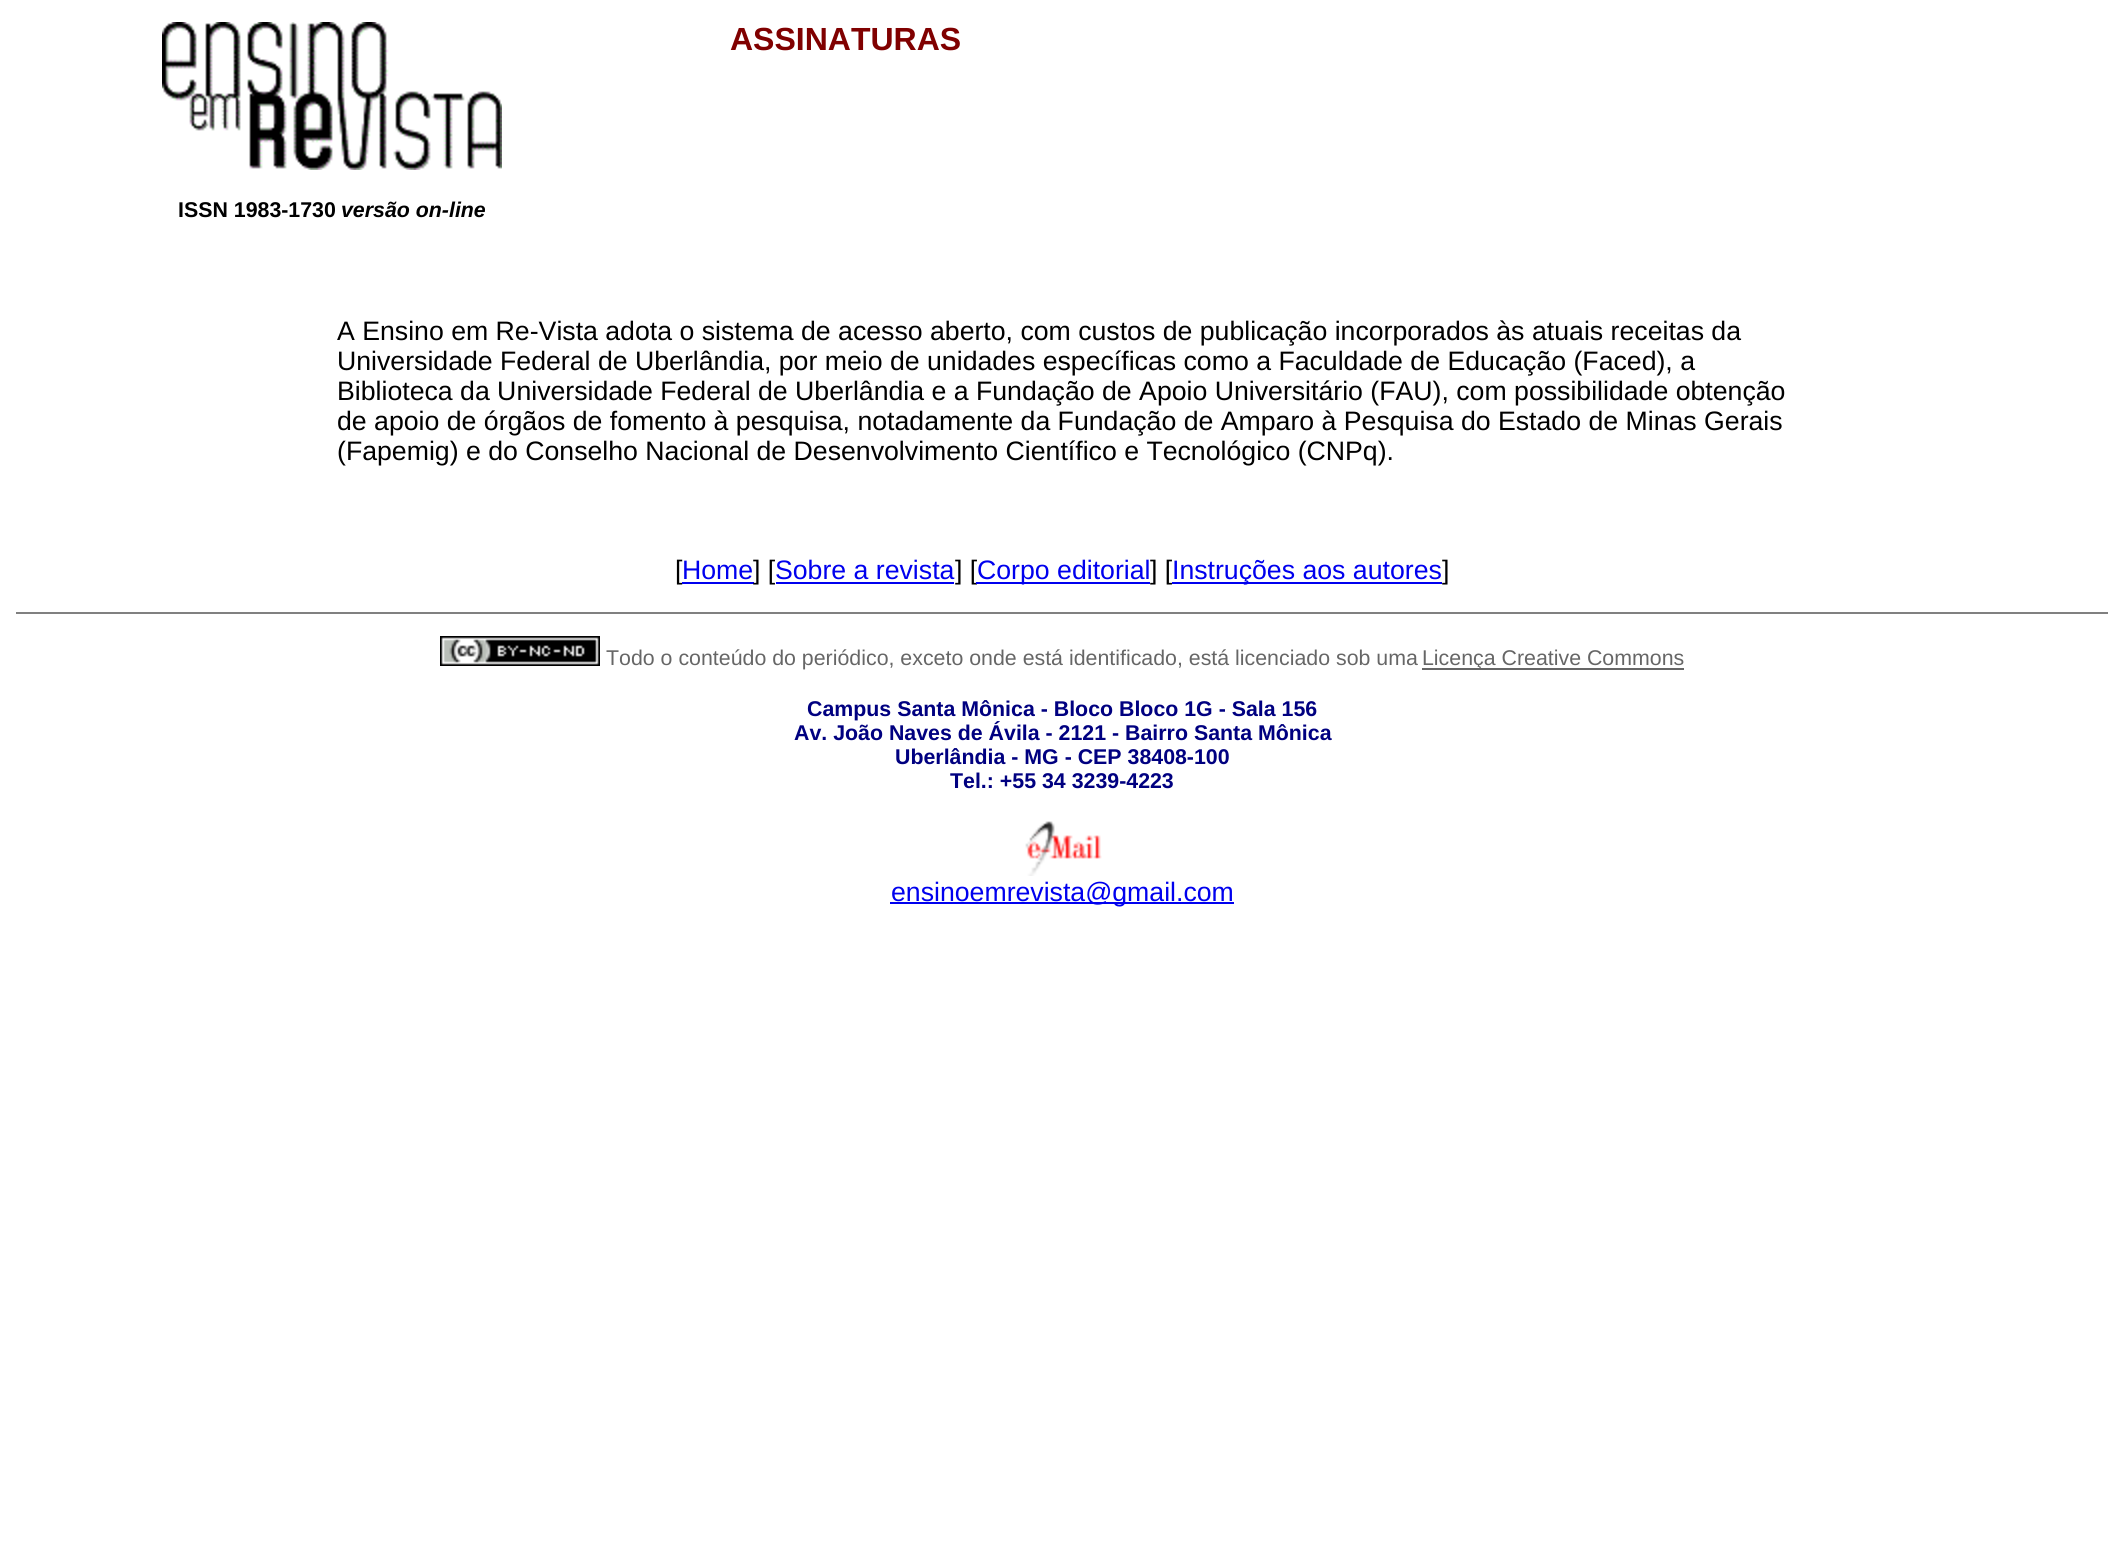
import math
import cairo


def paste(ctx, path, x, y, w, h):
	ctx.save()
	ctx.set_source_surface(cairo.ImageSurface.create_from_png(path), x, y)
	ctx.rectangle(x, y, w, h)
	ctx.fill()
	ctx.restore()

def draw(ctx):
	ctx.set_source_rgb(1, 1, 1)
	ctx.paint()
	ctx.select_font_face('Liberation Sans', cairo.FONT_SLANT_NORMAL, cairo.FONT_WEIGHT_BOLD)
	ctx.set_font_size(32)
	ctx.set_source_rgb(0.502, 0, 0)
	ctx.move_to(730, 50)
	ctx.show_text('ASSINATURAS')
	paste(ctx, 'media/1.png', 162, 22, 340, 148)
	ctx.set_font_size(21.35)
	ctx.set_source_rgb(0, 0, 0)
	ctx.move_to(178, 217)
	ctx.show_text('ISSN 1983-1730')
	ctx.select_font_face('Liberation Sans', cairo.FONT_SLANT_ITALIC, cairo.FONT_WEIGHT_BOLD)
	ctx.move_to(341, 217)
	ctx.show_text('versão on-line')
	ctx.select_font_face('Liberation Sans')
	ctx.set_font_size(26.67)
	for x, y, s in [
		(337, 340, 'A Ensino em Re-Vista adota o sistema de acesso aberto, com custos de publicação incorporados às'),
		(1532, 340, 'atuais receitas da'),
		(337, 370, 'Universidade Federal de Uberlândia, por meio de unidades específicas como a Faculdade de Educação (Faced), a'),
		(337, 400, 'Biblioteca da Universidade Federal de Uberlândia e a Fundação de Apoio Universitário (FAU), com possibilidade obtenção'),
		(337, 430, 'de apoio de órgãos de fomento à pesquisa, notadamente da Fundação de Amparo à Pesquisa do'),
		(1498, 430, 'Estado de Minas Gerais'),
		(337, 460, '(Fapemig) e do Conselho Nacional de Desenvolvimento Científico e Tecnológico (CNPq).'),
		(675, 579, '['),
	]:
		ctx.move_to(x, y)
		ctx.show_text(s)
	ctx.set_source_rgb(0, 0, 0.933)
	ctx.move_to(682, 579)
	ctx.show_text('Home')
	ctx.rectangle(682, 582, 72, 2)
	ctx.fill()
	ctx.set_source_rgb(0, 0, 0)
	ctx.move_to(753, 579)
	ctx.show_text('] [')
	ctx.set_source_rgb(0, 0, 0.933)
	ctx.move_to(775, 579)
	ctx.show_text('Sobre a revista')
	ctx.rectangle(776, 582, 178, 2)
	ctx.fill()
	ctx.set_source_rgb(0, 0, 0)
	ctx.move_to(955, 579)
	ctx.show_text('] [')
	ctx.set_source_rgb(0, 0, 0.933)
	ctx.rectangle(976, 582, 174, 2)
	ctx.fill()
	ctx.move_to(977, 579)
	ctx.show_text('Corpo editorial')
	ctx.set_source_rgb(0, 0, 0)
	ctx.move_to(1150, 579)
	ctx.show_text('] [')
	ctx.set_source_rgb(0, 0, 0.933)
	ctx.rectangle(1172, 582, 270, 2)
	ctx.fill()
	ctx.move_to(1172, 579)
	ctx.show_text('Instruções aos autores')
	ctx.set_source_rgb(0, 0, 0)
	ctx.move_to(1442, 579)
	ctx.show_text(']')
	ctx.set_source_rgb(0.502, 0.502, 0.502)
	ctx.rectangle(16, 612, 2092, 2)
	ctx.fill()
	paste(ctx, 'media/2.png', 440, 636, 160, 30)
	ctx.set_font_size(21.35)
	ctx.set_source_rgb(0.4, 0.4, 0.4)
	ctx.move_to(606, 665)
	ctx.show_text('Todo o conteúdo do periódico, exceto onde está identificado, está licenciado sob uma')
	ctx.rectangle(1422, 668, 262, 2)
	ctx.fill()
	ctx.move_to(1422, 665)
	ctx.show_text('Licença Creative Commons')
	ctx.select_font_face('Liberation Sans', cairo.FONT_SLANT_NORMAL, cairo.FONT_WEIGHT_BOLD)
	ctx.set_source_rgb(0, 0, 0.502)
	for x, y, s in [
		(807, 716, 'Campus Santa Mônica - Bloco Bloco 1G - Sala 156'),
		(794, 740, 'Av. João Naves de Ávila - 2121 - Bairro Santa Mônica'),
		(895, 764, 'Uberlândia - MG - CEP 38408-100'),
		(950, 788, 'Tel.: +55 34 3239-4223'),
	]:
		ctx.move_to(x, y)
		ctx.show_text(s)
	paste(ctx, 'media/3.png', 1025, 821, 77, 55)
	ctx.set_source_rgb(0, 0, 0.933)
	ctx.rectangle(890, 902, 344, 2)
	ctx.fill()
	ctx.select_font_face('Liberation Sans')
	ctx.set_font_size(26.67)
	ctx.move_to(891, 901)
	ctx.show_text('ensinoemrevista@gmail.com')


surface = cairo.ImageSurface(cairo.FORMAT_RGB24, 2123, 1566)
ctx = cairo.Context(surface)
options = cairo.FontOptions()
options.set_hint_metrics(cairo.HINT_METRICS_OFF)
options.set_hint_style(cairo.HINT_STYLE_NONE)
ctx.set_font_options(options)
ctx.set_miter_limit(4)
draw(ctx)
surface.write_to_png('image.png')
